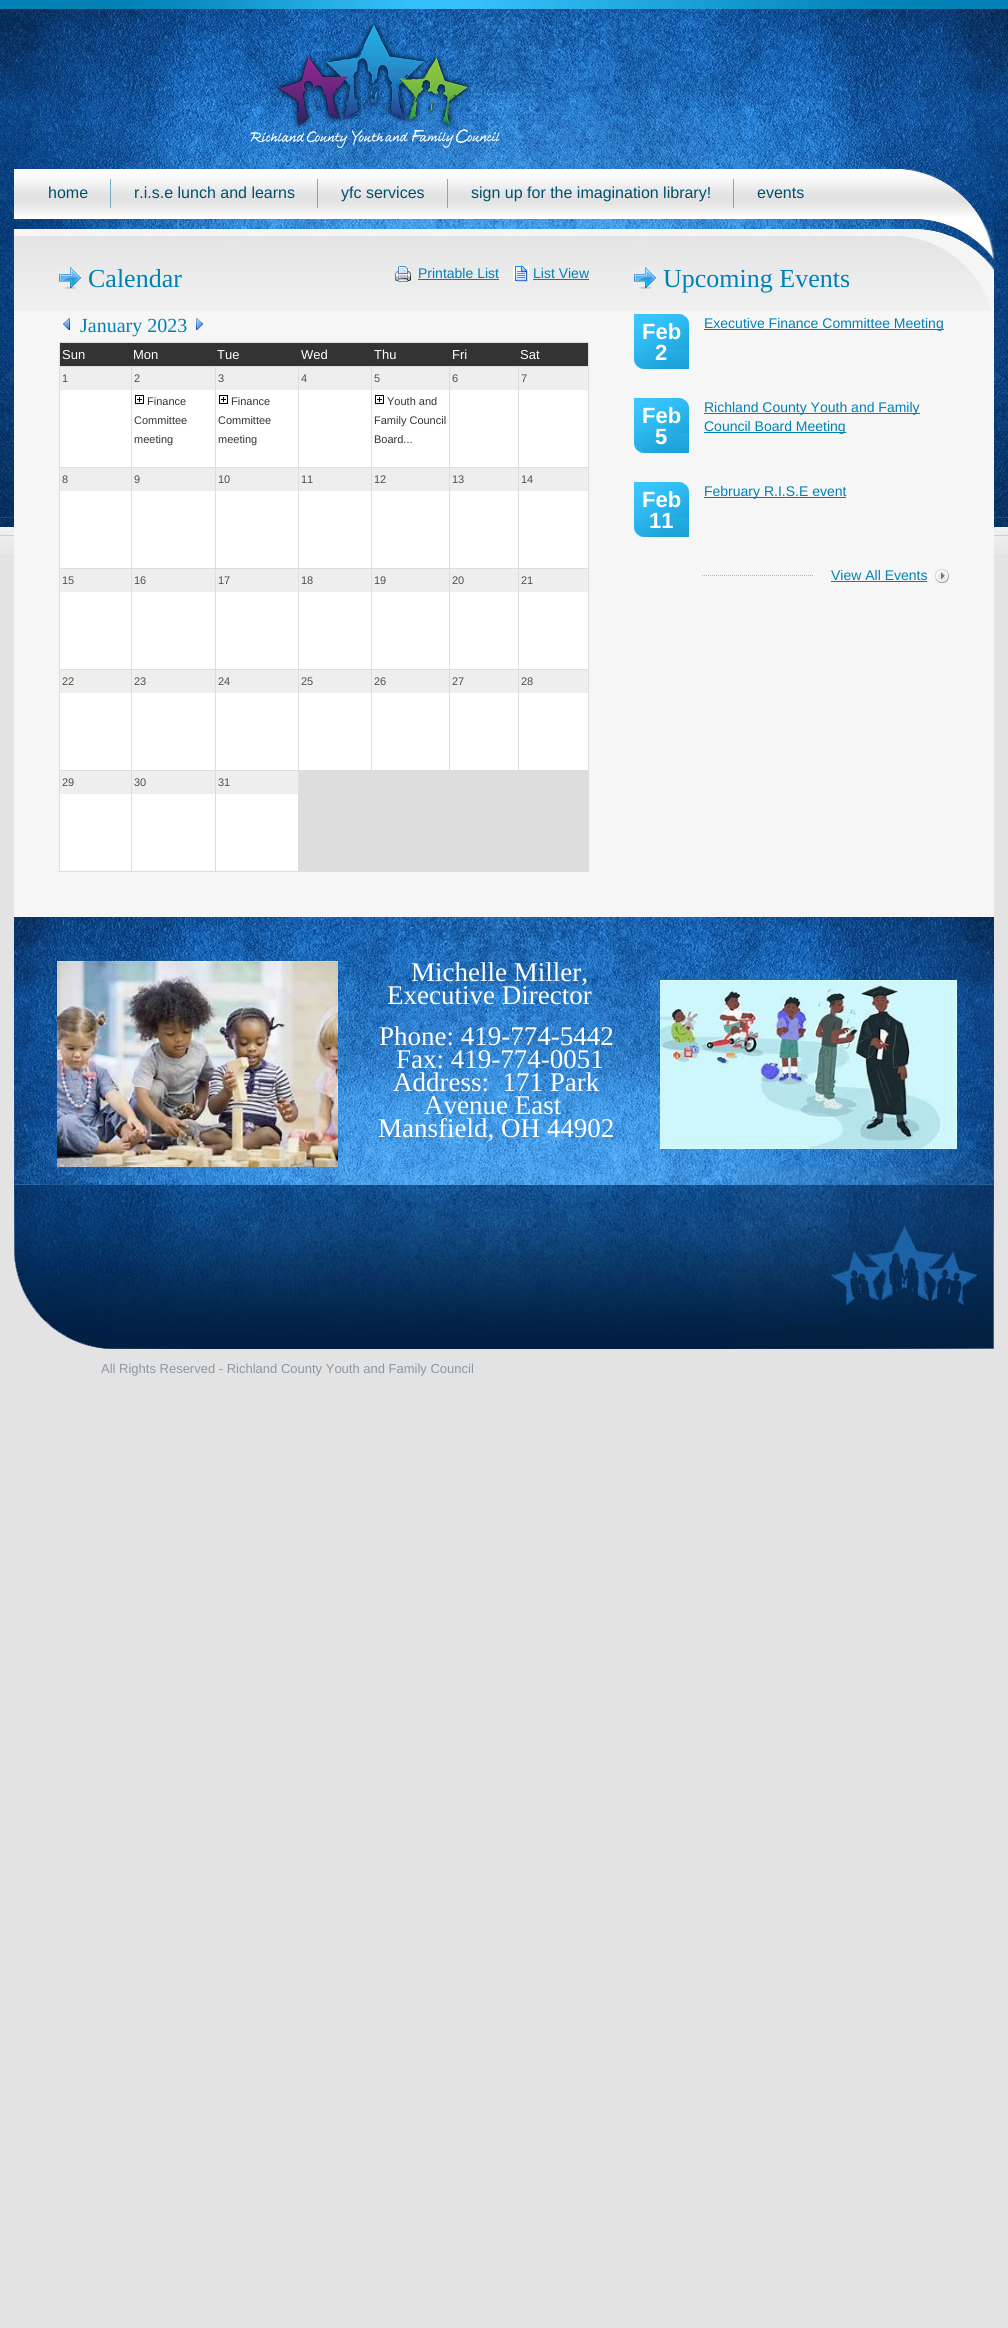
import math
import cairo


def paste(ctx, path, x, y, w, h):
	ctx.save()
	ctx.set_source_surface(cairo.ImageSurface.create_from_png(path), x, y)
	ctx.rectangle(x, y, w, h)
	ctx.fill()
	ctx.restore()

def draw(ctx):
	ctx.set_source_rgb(0.89, 0.89, 0.89)
	ctx.paint()
	paste(ctx, 'media/1.png', 0, 527, 1008, 27)
	paste(ctx, 'media/2.png', 0, 0, 1008, 527)
	paste(ctx, 'media/3.png', 250, 21, 250, 127)
	paste(ctx, 'media/4.png', 14, 167, 980, 52)
	paste(ctx, 'media/5.png', 110, 167, 1, 41)
	ctx.select_font_face('Liberation Sans')
	ctx.set_font_size(16)
	ctx.set_source_rgb(0, 0.31, 0.435)
	ctx.move_to(48, 198)
	ctx.show_text('home')
	paste(ctx, 'media/5.png', 317, 167, 1, 41)
	ctx.move_to(134, 198)
	ctx.show_text('r.i.s.e lunch and learns')
	paste(ctx, 'media/6.png', 447, 168, 1, 40)
	ctx.move_to(341, 198)
	ctx.show_text('yfc services')
	paste(ctx, 'media/5.png', 733, 167, 1, 41)
	ctx.move_to(471, 198)
	ctx.show_text('sign up for the imagination library!')
	ctx.move_to(757, 198)
	ctx.show_text('events')
	ctx.set_source_rgb(0.961, 0.961, 0.961)
	ctx.rectangle(14, 311, 980, 606)
	ctx.fill()
	paste(ctx, 'media/7.png', 14, 219, 980, 92)
	paste(ctx, 'media/8.png', 59, 267, 22, 22)
	ctx.select_font_face('Liberation Serif')
	ctx.set_font_size(26)
	ctx.set_source_rgb(0, 0.506, 0.71)
	ctx.move_to(88, 287)
	ctx.show_text('Calendar')
	paste(ctx, 'media/9.png', 395, 266, 16, 16)
	ctx.select_font_face('Liberation Sans')
	ctx.set_font_size(14)
	ctx.move_to(418, 278)
	ctx.show_text('Printable List')
	ctx.rectangle(418, 279, 81, 1)
	ctx.fill()
	paste(ctx, 'media/10.png', 513, 266, 16, 16)
	ctx.move_to(533, 278)
	ctx.show_text('List View')
	ctx.rectangle(533, 279, 56, 1)
	ctx.fill()
	paste(ctx, 'media/11.png', 63, 318, 7, 12)
	ctx.select_font_face('Liberation Serif')
	ctx.set_font_size(20)
	ctx.move_to(80, 332)
	ctx.show_text('January 2023')
	paste(ctx, 'media/12.png', 196, 318, 7, 12)
	ctx.set_source_rgb(0.867, 0.867, 0.867)
	ctx.rectangle(59, 342, 530, 1)
	ctx.rectangle(588, 342, 1, 530)
	ctx.rectangle(59, 871, 530, 1)
	ctx.rectangle(59, 342, 1, 530)
	ctx.fill()
	ctx.set_source_rgb(0.2, 0.2, 0.2)
	ctx.rectangle(60, 343, 528, 23)
	ctx.fill()
	ctx.select_font_face('Liberation Sans')
	ctx.set_font_size(13)
	ctx.set_source_rgb(1, 1, 1)
	for x, y, s in [
		(62, 359, 'Sun'),
		(133, 359, 'Mon'),
		(217, 359, 'Tue'),
		(301, 359, 'Wed'),
		(374, 359, 'Thu'),
		(452, 359, 'Fri'),
		(520, 359, 'Sat'),
	]:
		ctx.move_to(x, y)
		ctx.show_text(s)
	ctx.rectangle(60, 390, 71, 77)
	ctx.fill()
	ctx.set_source_rgb(0.867, 0.867, 0.867)
	ctx.rectangle(518, 366, 71, 1)
	ctx.rectangle(518, 467, 71, 1)
	ctx.rectangle(518, 568, 71, 1)
	ctx.rectangle(518, 669, 71, 1)
	ctx.rectangle(298, 770, 291, 1)
	ctx.rectangle(518, 669, 1, 102)
	ctx.rectangle(449, 669, 70, 1)
	ctx.rectangle(518, 568, 1, 102)
	ctx.rectangle(449, 568, 70, 1)
	ctx.rectangle(518, 467, 1, 102)
	ctx.rectangle(449, 467, 70, 1)
	ctx.rectangle(518, 366, 1, 102)
	ctx.rectangle(449, 366, 70, 1)
	ctx.rectangle(449, 669, 1, 102)
	ctx.rectangle(371, 669, 79, 1)
	ctx.rectangle(449, 568, 1, 102)
	ctx.rectangle(371, 568, 79, 1)
	ctx.rectangle(449, 467, 1, 102)
	ctx.rectangle(371, 467, 79, 1)
	ctx.rectangle(449, 366, 1, 102)
	ctx.rectangle(371, 366, 79, 1)
	ctx.rectangle(371, 669, 1, 102)
	ctx.rectangle(298, 669, 74, 1)
	ctx.rectangle(371, 568, 1, 102)
	ctx.rectangle(298, 568, 74, 1)
	ctx.rectangle(371, 467, 1, 102)
	ctx.rectangle(298, 467, 74, 1)
	ctx.rectangle(371, 366, 1, 102)
	ctx.rectangle(298, 366, 74, 1)
	ctx.rectangle(298, 770, 1, 102)
	ctx.rectangle(215, 770, 84, 1)
	ctx.rectangle(298, 669, 1, 102)
	ctx.rectangle(215, 669, 84, 1)
	ctx.rectangle(298, 568, 1, 102)
	ctx.rectangle(215, 568, 84, 1)
	ctx.rectangle(298, 467, 1, 102)
	ctx.rectangle(215, 467, 84, 1)
	ctx.rectangle(298, 366, 1, 102)
	ctx.rectangle(215, 366, 84, 1)
	ctx.rectangle(215, 770, 1, 102)
	ctx.rectangle(131, 770, 85, 1)
	ctx.rectangle(215, 669, 1, 102)
	ctx.rectangle(131, 669, 85, 1)
	ctx.rectangle(215, 568, 1, 102)
	ctx.rectangle(131, 568, 85, 1)
	ctx.rectangle(215, 467, 1, 102)
	ctx.rectangle(131, 467, 85, 1)
	ctx.rectangle(215, 366, 1, 102)
	ctx.rectangle(131, 366, 85, 1)
	ctx.rectangle(131, 770, 1, 102)
	ctx.rectangle(59, 770, 73, 1)
	ctx.rectangle(131, 669, 1, 102)
	ctx.rectangle(59, 669, 73, 1)
	ctx.rectangle(131, 568, 1, 102)
	ctx.rectangle(59, 568, 73, 1)
	ctx.rectangle(131, 467, 1, 102)
	ctx.rectangle(59, 467, 73, 1)
	ctx.rectangle(131, 366, 1, 102)
	ctx.rectangle(59, 366, 73, 1)
	ctx.fill()
	ctx.set_source_rgb(0.933, 0.933, 0.933)
	ctx.rectangle(60, 367, 71, 23)
	ctx.fill()
	ctx.set_font_size(11)
	ctx.set_source_rgb(0.31, 0.31, 0.271)
	ctx.move_to(62, 382)
	ctx.show_text('1')
	ctx.set_source_rgb(1, 1, 1)
	ctx.rectangle(132, 390, 83, 77)
	ctx.fill()
	ctx.set_source_rgb(0.933, 0.933, 0.933)
	ctx.rectangle(132, 367, 83, 23)
	ctx.fill()
	ctx.set_source_rgb(0.31, 0.31, 0.271)
	ctx.move_to(134, 382)
	ctx.show_text('2')
	paste(ctx, 'media/13.png', 135, 395, 9, 9)
	ctx.set_source_rgb(0.2, 0.2, 0.2)
	for x, y, s in [
		(147, 405, 'Finance'),
		(134, 424, 'Committee'),
		(134, 443, 'meeting'),
	]:
		ctx.move_to(x, y)
		ctx.show_text(s)
	ctx.set_source_rgb(1, 1, 1)
	ctx.rectangle(216, 390, 82, 77)
	ctx.fill()
	ctx.set_source_rgb(0.933, 0.933, 0.933)
	ctx.rectangle(216, 367, 82, 23)
	ctx.fill()
	ctx.set_source_rgb(0.31, 0.31, 0.271)
	ctx.move_to(218, 382)
	ctx.show_text('3')
	paste(ctx, 'media/13.png', 219, 395, 9, 9)
	ctx.set_source_rgb(0.2, 0.2, 0.2)
	for x, y, s in [
		(231, 405, 'Finance'),
		(218, 424, 'Committee'),
		(218, 443, 'meeting'),
	]:
		ctx.move_to(x, y)
		ctx.show_text(s)
	ctx.set_source_rgb(1, 1, 1)
	ctx.rectangle(299, 390, 72, 77)
	ctx.fill()
	ctx.set_source_rgb(0.933, 0.933, 0.933)
	ctx.rectangle(299, 367, 72, 23)
	ctx.fill()
	ctx.set_source_rgb(0.31, 0.31, 0.271)
	ctx.move_to(301, 382)
	ctx.show_text('4')
	ctx.set_source_rgb(1, 1, 1)
	ctx.rectangle(372, 390, 77, 77)
	ctx.fill()
	ctx.set_source_rgb(0.933, 0.933, 0.933)
	ctx.rectangle(372, 367, 77, 23)
	ctx.fill()
	ctx.set_source_rgb(0.31, 0.31, 0.271)
	ctx.move_to(374, 382)
	ctx.show_text('5')
	paste(ctx, 'media/13.png', 375, 395, 9, 9)
	ctx.set_source_rgb(0.2, 0.2, 0.2)
	for x, y, s in [
		(387, 405, 'Youth and'),
		(374, 424, 'Family Council'),
		(374, 443, 'Board...'),
	]:
		ctx.move_to(x, y)
		ctx.show_text(s)
	ctx.set_source_rgb(1, 1, 1)
	ctx.rectangle(450, 390, 68, 77)
	ctx.fill()
	ctx.set_source_rgb(0.933, 0.933, 0.933)
	ctx.rectangle(450, 367, 68, 23)
	ctx.fill()
	ctx.set_source_rgb(0.31, 0.31, 0.271)
	ctx.move_to(452, 382)
	ctx.show_text('6')
	ctx.set_source_rgb(1, 1, 1)
	ctx.rectangle(519, 390, 69, 77)
	ctx.fill()
	ctx.set_source_rgb(0.933, 0.933, 0.933)
	ctx.rectangle(519, 367, 69, 23)
	ctx.fill()
	ctx.set_source_rgb(0.31, 0.31, 0.271)
	ctx.move_to(521, 382)
	ctx.show_text('7')
	ctx.set_source_rgb(1, 1, 1)
	ctx.rectangle(60, 491, 71, 77)
	ctx.fill()
	ctx.set_source_rgb(0.933, 0.933, 0.933)
	ctx.rectangle(60, 468, 71, 23)
	ctx.fill()
	ctx.set_source_rgb(0.31, 0.31, 0.271)
	ctx.move_to(62, 483)
	ctx.show_text('8')
	ctx.set_source_rgb(1, 1, 1)
	ctx.rectangle(132, 491, 83, 77)
	ctx.fill()
	ctx.set_source_rgb(0.933, 0.933, 0.933)
	ctx.rectangle(132, 468, 83, 23)
	ctx.fill()
	ctx.set_source_rgb(0.31, 0.31, 0.271)
	ctx.move_to(134, 483)
	ctx.show_text('9')
	ctx.set_source_rgb(1, 1, 1)
	ctx.rectangle(216, 491, 82, 77)
	ctx.fill()
	ctx.set_source_rgb(0.933, 0.933, 0.933)
	ctx.rectangle(216, 468, 82, 23)
	ctx.fill()
	ctx.set_source_rgb(0.31, 0.31, 0.271)
	ctx.move_to(218, 483)
	ctx.show_text('10')
	ctx.set_source_rgb(1, 1, 1)
	ctx.rectangle(299, 491, 72, 77)
	ctx.fill()
	ctx.set_source_rgb(0.933, 0.933, 0.933)
	ctx.rectangle(299, 468, 72, 23)
	ctx.fill()
	ctx.set_source_rgb(0.31, 0.31, 0.271)
	ctx.move_to(301, 483)
	ctx.show_text('11')
	ctx.set_source_rgb(1, 1, 1)
	ctx.rectangle(372, 491, 77, 77)
	ctx.fill()
	ctx.set_source_rgb(0.933, 0.933, 0.933)
	ctx.rectangle(372, 468, 77, 23)
	ctx.fill()
	ctx.set_source_rgb(0.31, 0.31, 0.271)
	ctx.move_to(374, 483)
	ctx.show_text('12')
	ctx.set_source_rgb(1, 1, 1)
	ctx.rectangle(450, 491, 68, 77)
	ctx.fill()
	ctx.set_source_rgb(0.933, 0.933, 0.933)
	ctx.rectangle(450, 468, 68, 23)
	ctx.fill()
	ctx.set_source_rgb(0.31, 0.31, 0.271)
	ctx.move_to(452, 483)
	ctx.show_text('13')
	ctx.set_source_rgb(1, 1, 1)
	ctx.rectangle(519, 491, 69, 77)
	ctx.fill()
	ctx.set_source_rgb(0.933, 0.933, 0.933)
	ctx.rectangle(519, 468, 69, 23)
	ctx.fill()
	ctx.set_source_rgb(0.31, 0.31, 0.271)
	ctx.move_to(521, 483)
	ctx.show_text('14')
	ctx.set_source_rgb(1, 1, 1)
	ctx.rectangle(60, 592, 71, 77)
	ctx.fill()
	ctx.set_source_rgb(0.933, 0.933, 0.933)
	ctx.rectangle(60, 569, 71, 23)
	ctx.fill()
	ctx.set_source_rgb(0.31, 0.31, 0.271)
	ctx.move_to(62, 584)
	ctx.show_text('15')
	ctx.set_source_rgb(1, 1, 1)
	ctx.rectangle(132, 592, 83, 77)
	ctx.fill()
	ctx.set_source_rgb(0.933, 0.933, 0.933)
	ctx.rectangle(132, 569, 83, 23)
	ctx.fill()
	ctx.set_source_rgb(0.31, 0.31, 0.271)
	ctx.move_to(134, 584)
	ctx.show_text('16')
	ctx.set_source_rgb(1, 1, 1)
	ctx.rectangle(216, 592, 82, 77)
	ctx.fill()
	ctx.set_source_rgb(0.933, 0.933, 0.933)
	ctx.rectangle(216, 569, 82, 23)
	ctx.fill()
	ctx.set_source_rgb(0.31, 0.31, 0.271)
	ctx.move_to(218, 584)
	ctx.show_text('17')
	ctx.set_source_rgb(1, 1, 1)
	ctx.rectangle(299, 592, 72, 77)
	ctx.fill()
	ctx.set_source_rgb(0.933, 0.933, 0.933)
	ctx.rectangle(299, 569, 72, 23)
	ctx.fill()
	ctx.set_source_rgb(0.31, 0.31, 0.271)
	ctx.move_to(301, 584)
	ctx.show_text('18')
	ctx.set_source_rgb(1, 1, 1)
	ctx.rectangle(372, 592, 77, 77)
	ctx.fill()
	ctx.set_source_rgb(0.933, 0.933, 0.933)
	ctx.rectangle(372, 569, 77, 23)
	ctx.fill()
	ctx.set_source_rgb(0.31, 0.31, 0.271)
	ctx.move_to(374, 584)
	ctx.show_text('19')
	ctx.set_source_rgb(1, 1, 1)
	ctx.rectangle(450, 592, 68, 77)
	ctx.fill()
	ctx.set_source_rgb(0.933, 0.933, 0.933)
	ctx.rectangle(450, 569, 68, 23)
	ctx.fill()
	ctx.set_source_rgb(0.31, 0.31, 0.271)
	ctx.move_to(452, 584)
	ctx.show_text('20')
	ctx.set_source_rgb(1, 1, 1)
	ctx.rectangle(519, 592, 69, 77)
	ctx.fill()
	ctx.set_source_rgb(0.933, 0.933, 0.933)
	ctx.rectangle(519, 569, 69, 23)
	ctx.fill()
	ctx.set_source_rgb(0.31, 0.31, 0.271)
	ctx.move_to(521, 584)
	ctx.show_text('21')
	ctx.set_source_rgb(1, 1, 1)
	ctx.rectangle(60, 693, 71, 77)
	ctx.fill()
	ctx.set_source_rgb(0.933, 0.933, 0.933)
	ctx.rectangle(60, 670, 71, 23)
	ctx.fill()
	ctx.set_source_rgb(0.31, 0.31, 0.271)
	ctx.move_to(62, 685)
	ctx.show_text('22')
	ctx.set_source_rgb(1, 1, 1)
	ctx.rectangle(132, 693, 83, 77)
	ctx.fill()
	ctx.set_source_rgb(0.933, 0.933, 0.933)
	ctx.rectangle(132, 670, 83, 23)
	ctx.fill()
	ctx.set_source_rgb(0.31, 0.31, 0.271)
	ctx.move_to(134, 685)
	ctx.show_text('23')
	ctx.set_source_rgb(1, 1, 1)
	ctx.rectangle(216, 693, 82, 77)
	ctx.fill()
	ctx.set_source_rgb(0.933, 0.933, 0.933)
	ctx.rectangle(216, 670, 82, 23)
	ctx.fill()
	ctx.set_source_rgb(0.31, 0.31, 0.271)
	ctx.move_to(218, 685)
	ctx.show_text('24')
	ctx.set_source_rgb(1, 1, 1)
	ctx.rectangle(299, 693, 72, 77)
	ctx.fill()
	ctx.set_source_rgb(0.933, 0.933, 0.933)
	ctx.rectangle(299, 670, 72, 23)
	ctx.fill()
	ctx.set_source_rgb(0.31, 0.31, 0.271)
	ctx.move_to(301, 685)
	ctx.show_text('25')
	ctx.set_source_rgb(1, 1, 1)
	ctx.rectangle(372, 693, 77, 77)
	ctx.fill()
	ctx.set_source_rgb(0.933, 0.933, 0.933)
	ctx.rectangle(372, 670, 77, 23)
	ctx.fill()
	ctx.set_source_rgb(0.31, 0.31, 0.271)
	ctx.move_to(374, 685)
	ctx.show_text('26')
	ctx.set_source_rgb(1, 1, 1)
	ctx.rectangle(450, 693, 68, 77)
	ctx.fill()
	ctx.set_source_rgb(0.933, 0.933, 0.933)
	ctx.rectangle(450, 670, 68, 23)
	ctx.fill()
	ctx.set_source_rgb(0.31, 0.31, 0.271)
	ctx.move_to(452, 685)
	ctx.show_text('27')
	ctx.set_source_rgb(1, 1, 1)
	ctx.rectangle(519, 693, 69, 77)
	ctx.fill()
	ctx.set_source_rgb(0.933, 0.933, 0.933)
	ctx.rectangle(519, 670, 69, 23)
	ctx.fill()
	ctx.set_source_rgb(0.31, 0.31, 0.271)
	ctx.move_to(521, 685)
	ctx.show_text('28')
	ctx.set_source_rgb(1, 1, 1)
	ctx.rectangle(60, 794, 71, 77)
	ctx.fill()
	ctx.set_source_rgb(0.933, 0.933, 0.933)
	ctx.rectangle(60, 771, 71, 23)
	ctx.fill()
	ctx.set_source_rgb(0.31, 0.31, 0.271)
	ctx.move_to(62, 786)
	ctx.show_text('29')
	ctx.set_source_rgb(1, 1, 1)
	ctx.rectangle(132, 794, 83, 77)
	ctx.fill()
	ctx.set_source_rgb(0.933, 0.933, 0.933)
	ctx.rectangle(132, 771, 83, 23)
	ctx.fill()
	ctx.set_source_rgb(0.31, 0.31, 0.271)
	ctx.move_to(134, 786)
	ctx.show_text('30')
	ctx.set_source_rgb(1, 1, 1)
	ctx.rectangle(216, 794, 82, 77)
	ctx.fill()
	ctx.set_source_rgb(0.933, 0.933, 0.933)
	ctx.rectangle(216, 771, 82, 23)
	ctx.fill()
	ctx.set_source_rgb(0.31, 0.31, 0.271)
	ctx.move_to(218, 786)
	ctx.show_text('31')
	ctx.set_source_rgb(0.867, 0.867, 0.867)
	ctx.rectangle(299, 771, 289, 100)
	ctx.fill()
	paste(ctx, 'media/8.png', 634, 267, 22, 22)
	ctx.select_font_face('Liberation Serif')
	ctx.set_font_size(26)
	ctx.set_source_rgb(0, 0.506, 0.71)
	ctx.move_to(663, 287)
	ctx.show_text('Upcoming Events')
	paste(ctx, 'media/14.png', 634, 314, 55, 55)
	ctx.select_font_face('Liberation Sans', cairo.FONT_SLANT_NORMAL, cairo.FONT_WEIGHT_BOLD)
	ctx.set_font_size(22)
	ctx.set_source_rgb(1, 1, 1)
	ctx.move_to(642, 339)
	ctx.show_text('Feb')
	ctx.move_to(655, 360)
	ctx.show_text('2')
	ctx.set_source_rgb(0, 0.506, 0.71)
	ctx.rectangle(704, 329, 240, 1)
	ctx.fill()
	ctx.select_font_face('Liberation Sans')
	ctx.set_font_size(14)
	ctx.move_to(704, 328)
	ctx.show_text('Executive Finance Committee Meeting')
	paste(ctx, 'media/14.png', 634, 398, 55, 55)
	ctx.select_font_face('Liberation Sans', cairo.FONT_SLANT_NORMAL, cairo.FONT_WEIGHT_BOLD)
	ctx.set_font_size(22)
	ctx.set_source_rgb(1, 1, 1)
	ctx.move_to(642, 423)
	ctx.show_text('Feb')
	ctx.move_to(655, 444)
	ctx.show_text('5')
	ctx.set_source_rgb(0, 0.506, 0.71)
	ctx.rectangle(704, 413, 216, 1)
	ctx.fill()
	ctx.select_font_face('Liberation Sans')
	ctx.set_font_size(14)
	ctx.move_to(704, 412)
	ctx.show_text('Richland County Youth and Family')
	ctx.rectangle(704, 432, 142, 1)
	ctx.fill()
	ctx.move_to(704, 431)
	ctx.show_text('Council Board Meeting')
	paste(ctx, 'media/14.png', 634, 482, 55, 55)
	ctx.select_font_face('Liberation Sans', cairo.FONT_SLANT_NORMAL, cairo.FONT_WEIGHT_BOLD)
	ctx.set_font_size(22)
	ctx.set_source_rgb(1, 1, 1)
	ctx.move_to(642, 507)
	ctx.show_text('Feb')
	ctx.move_to(649, 528)
	ctx.show_text('11')
	ctx.set_source_rgb(0, 0.506, 0.71)
	ctx.rectangle(704, 497, 142, 1)
	ctx.fill()
	ctx.select_font_face('Liberation Sans')
	ctx.set_font_size(14)
	ctx.move_to(704, 496)
	ctx.show_text('February R.I.S.E event')
	paste(ctx, 'media/15.png', 702, 575, 111, 1)
	paste(ctx, 'media/16.png', 935, 569, 14, 14)
	ctx.move_to(831, 580)
	ctx.show_text('View All Events')
	ctx.rectangle(831, 581, 96, 1)
	ctx.fill()
	paste(ctx, 'media/17.png', 14, 917, 980, 432)
	paste(ctx, 'media/18.png', 57, 961, 281, 206)
	ctx.select_font_face('Liberation Serif')
	ctx.set_font_size(27)
	ctx.set_source_rgb(1, 1, 1)
	for x, y, s in [
		(411, 981, 'Michelle Miller,'),
		(387, 1004, 'Executive Director'),
		(379, 1045, 'Phone: 419-774-5442'),
		(396, 1068, 'Fax: 419-774-0051'),
		(393, 1091, 'Address:  171 Park'),
		(424, 1114, 'Avenue East'),
		(378, 1137, 'Mansfield, OH 44902'),
	]:
		ctx.move_to(x, y)
		ctx.show_text(s)
	paste(ctx, 'media/19.png', 660, 980, 297, 169)
	ctx.select_font_face('Liberation Sans')
	ctx.set_font_size(13)
	ctx.set_source_rgb(0.549, 0.592, 0.631)
	ctx.move_to(101, 1373)
	ctx.show_text('All Rights Reserved - Richland County Youth and Family Council')


surface = cairo.ImageSurface(cairo.FORMAT_RGB24, 1008, 2328)
ctx = cairo.Context(surface)
options = cairo.FontOptions()
options.set_hint_metrics(cairo.HINT_METRICS_OFF)
options.set_hint_style(cairo.HINT_STYLE_NONE)
ctx.set_font_options(options)
ctx.set_miter_limit(4)
draw(ctx)
surface.write_to_png('image.png')
